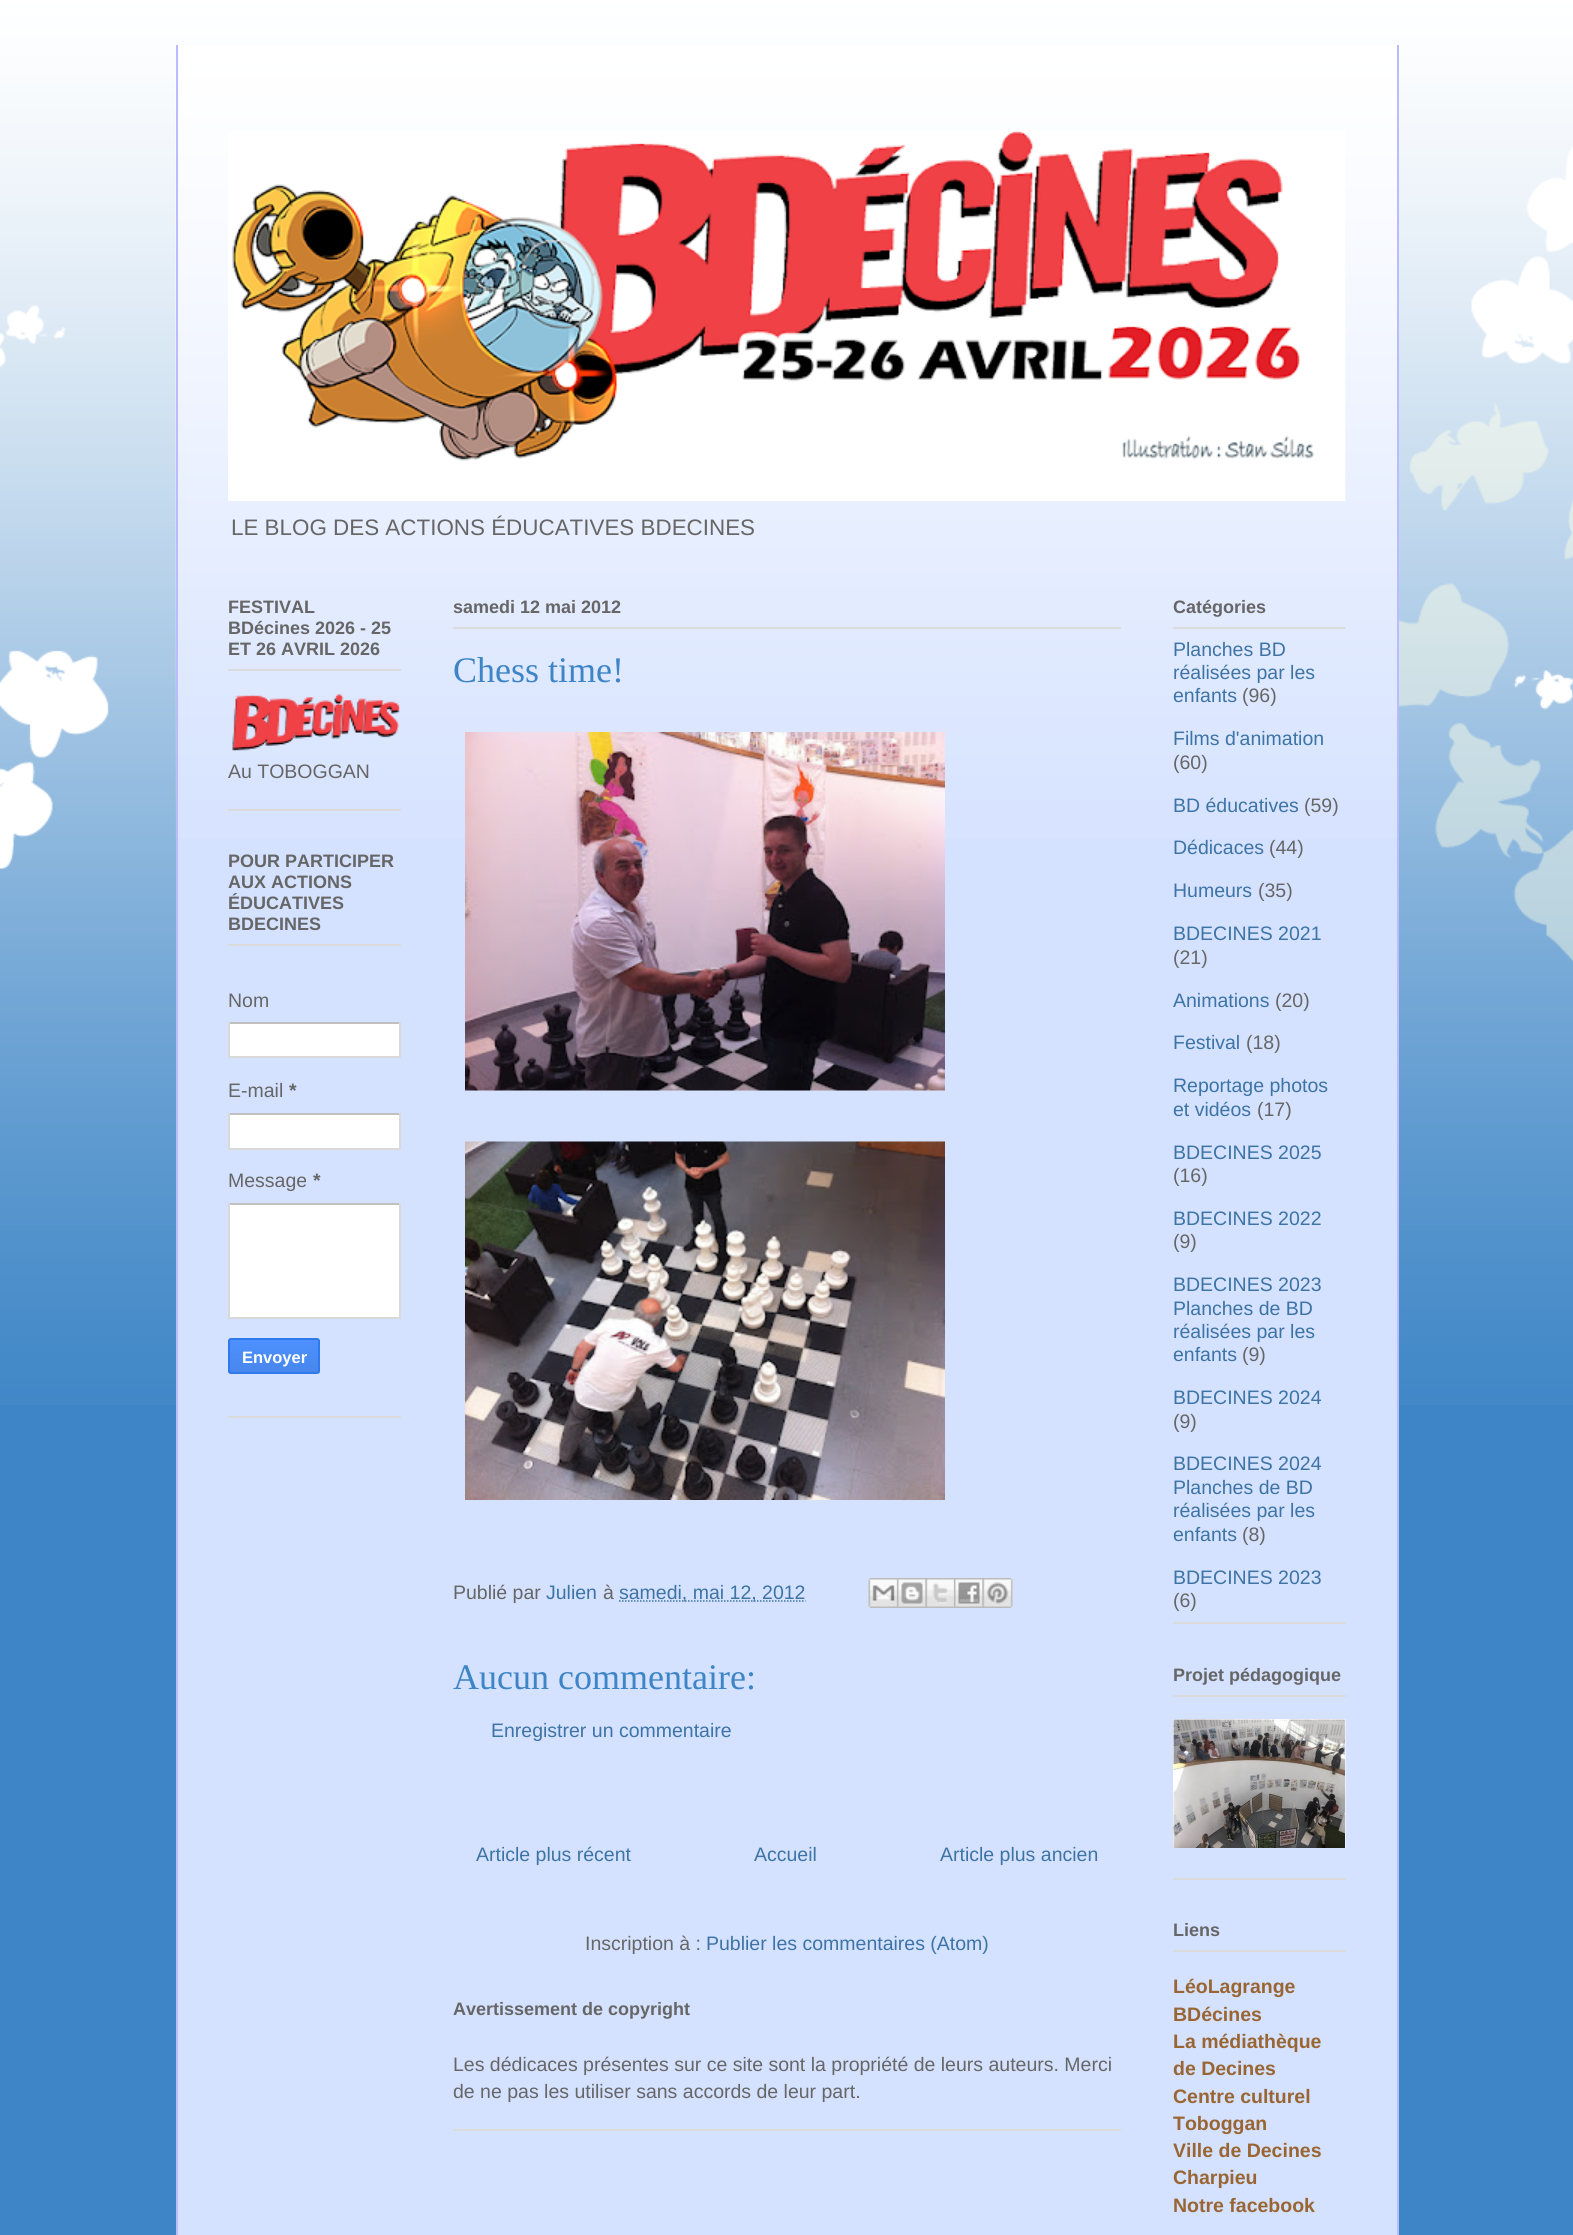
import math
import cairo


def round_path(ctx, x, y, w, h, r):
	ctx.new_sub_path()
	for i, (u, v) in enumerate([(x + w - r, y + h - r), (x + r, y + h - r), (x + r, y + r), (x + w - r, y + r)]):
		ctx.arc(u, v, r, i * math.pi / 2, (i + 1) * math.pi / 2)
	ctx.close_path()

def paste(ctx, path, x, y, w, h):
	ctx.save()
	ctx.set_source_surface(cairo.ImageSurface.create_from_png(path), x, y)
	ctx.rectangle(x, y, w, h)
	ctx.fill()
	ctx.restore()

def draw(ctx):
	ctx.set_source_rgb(0.239, 0.522, 0.776)
	ctx.paint()
	paste(ctx, 'media/1.png', 0, 0, 1573, 1405)
	ctx.set_source_rgb(0.831, 0.882, 1)
	ctx.rectangle(178, 55, 1219, 2180)
	ctx.fill()
	paste(ctx, 'media/2.png', 175, 45, 1222, 793)
	ctx.set_source_rgb(0.733, 0.733, 1)
	ctx.rectangle(1397, 45, 2, 2190)
	ctx.fill()
	ctx.rectangle(176, 45, 2, 2190)
	ctx.fill()
	paste(ctx, 'media/3.png', 228, 131, 1118, 370)
	ctx.select_font_face('Liberation Sans')
	ctx.set_font_size(22.4)
	ctx.set_source_rgb(0.4, 0.4, 0.4)
	ctx.move_to(231, 535)
	ctx.show_text('LE BLOG DES ACTIONS ÉDUCATIVES BDECINES')
	ctx.set_source_rgb(0.859, 0.859, 0.859)
	ctx.rectangle(228, 809, 173, 2)
	ctx.fill()
	ctx.rectangle(228, 669, 173, 2)
	ctx.fill()
	ctx.select_font_face('Liberation Sans', cairo.FONT_SLANT_NORMAL, cairo.FONT_WEIGHT_BOLD)
	ctx.set_font_size(18)
	ctx.set_source_rgb(0.4, 0.4, 0.4)
	for x, y, s in [
		(228, 613, 'FESTIVAL'),
		(228, 634, 'BDécines 2026 - 25'),
		(228, 655, 'ET 26 AVRIL 2026'),
	]:
		ctx.move_to(x, y)
		ctx.show_text(s)
	paste(ctx, 'media/4.png', 232, 694, 168, 57)
	ctx.select_font_face('Liberation Sans')
	ctx.set_font_size(19.5)
	ctx.move_to(228, 778)
	ctx.show_text('Au TOBOGGAN')
	ctx.set_source_rgb(0.859, 0.859, 0.859)
	ctx.rectangle(228, 1416, 173, 2)
	ctx.fill()
	ctx.rectangle(228, 944, 173, 2)
	ctx.fill()
	ctx.select_font_face('Liberation Sans', cairo.FONT_SLANT_NORMAL, cairo.FONT_WEIGHT_BOLD)
	ctx.set_font_size(18)
	ctx.set_source_rgb(0.4, 0.4, 0.4)
	for x, y, s in [
		(228, 867, 'POUR PARTICIPER'),
		(228, 888, 'AUX ACTIONS'),
		(228, 909, 'ÉDUCATIVES'),
		(228, 930, 'BDECINES'),
	]:
		ctx.move_to(x, y)
		ctx.show_text(s)
	ctx.select_font_face('Liberation Sans')
	ctx.set_font_size(19.5)
	ctx.move_to(228, 1007)
	ctx.show_text('Nom')
	ctx.set_source_rgb(1, 1, 1)
	ctx.rectangle(230, 1024, 169, 32)
	ctx.fill()
	ctx.set_source_rgb(0.753, 0.753, 0.753)
	ctx.rectangle(228, 1022, 173, 2)
	ctx.fill()
	ctx.set_source_rgb(0.851, 0.851, 0.851)
	ctx.rectangle(399, 1022, 2, 36)
	ctx.rectangle(228, 1056, 173, 2)
	ctx.rectangle(228, 1022, 2, 36)
	ctx.fill()
	ctx.set_source_rgb(0.4, 0.4, 0.4)
	ctx.move_to(228, 1097)
	ctx.show_text('E-mail')
	ctx.select_font_face('Liberation Sans', cairo.FONT_SLANT_NORMAL, cairo.FONT_WEIGHT_BOLD)
	ctx.move_to(289, 1097)
	ctx.show_text('*')
	ctx.set_source_rgb(1, 1, 1)
	ctx.rectangle(230, 1115, 169, 33)
	ctx.fill()
	ctx.set_source_rgb(0.753, 0.753, 0.753)
	ctx.rectangle(228, 1113, 173, 2)
	ctx.fill()
	ctx.set_source_rgb(0.851, 0.851, 0.851)
	ctx.rectangle(399, 1113, 2, 36)
	ctx.rectangle(228, 1148, 173, 2)
	ctx.rectangle(228, 1113, 2, 36)
	ctx.fill()
	ctx.select_font_face('Liberation Sans')
	ctx.set_source_rgb(0.4, 0.4, 0.4)
	ctx.move_to(228, 1187)
	ctx.show_text('Message')
	ctx.select_font_face('Liberation Sans', cairo.FONT_SLANT_NORMAL, cairo.FONT_WEIGHT_BOLD)
	ctx.move_to(313, 1187)
	ctx.show_text('*')
	ctx.set_source_rgb(1, 1, 1)
	ctx.rectangle(230, 1205, 169, 112)
	ctx.fill()
	ctx.set_source_rgb(0.753, 0.753, 0.753)
	ctx.rectangle(228, 1203, 173, 2)
	ctx.fill()
	ctx.set_source_rgb(0.851, 0.851, 0.851)
	ctx.rectangle(399, 1203, 2, 116)
	ctx.rectangle(228, 1317, 173, 2)
	ctx.rectangle(228, 1203, 2, 116)
	ctx.fill()
	ctx.save()
	round_path(ctx, 228, 1338, 92, 36, 3)
	ctx.clip()
	gradient = cairo.LinearGradient(274, 1340, 274, 1373)
	gradient.add_color_stop_rgba(0, 0.302, 0.565, 0.996, 1)
	gradient.add_color_stop_rgba(1, 0.278, 0.529, 0.929, 1)
	ctx.set_source(gradient)
	ctx.rectangle(228, 1340, 92, 33)
	ctx.fill()
	ctx.restore()
	round_path(ctx, 229, 1339, 90, 34, 2)
	ctx.set_source_rgb(0.188, 0.475, 0.929)
	ctx.stroke()
	ctx.set_font_size(16.5)
	ctx.set_source_rgb(1, 1, 1)
	ctx.move_to(242, 1363)
	ctx.show_text('Envoyer')
	ctx.set_source_rgb(0.859, 0.859, 0.859)
	ctx.rectangle(453, 627, 668, 2)
	ctx.fill()
	ctx.set_font_size(18)
	ctx.set_source_rgb(0.4, 0.4, 0.4)
	ctx.move_to(453, 613)
	ctx.show_text('samedi 12 mai 2012')
	ctx.select_font_face('Liberation Serif')
	ctx.set_font_size(36)
	ctx.set_source_rgb(0.239, 0.522, 0.776)
	ctx.move_to(453, 682)
	ctx.show_text('Chess time!')
	paste(ctx, 'media/5.png', 465, 732, 480, 359)
	paste(ctx, 'media/6.png', 465, 1141, 480, 359)
	ctx.select_font_face('Liberation Sans')
	ctx.set_font_size(19.5)
	ctx.set_source_rgb(0.4, 0.4, 0.4)
	ctx.move_to(453, 1599)
	ctx.show_text('Publié par')
	ctx.set_source_rgb(0.239, 0.455, 0.647)
	ctx.move_to(546, 1599)
	ctx.show_text('Julien')
	ctx.set_source_rgb(0.4, 0.4, 0.4)
	ctx.move_to(603, 1599)
	ctx.show_text('à')
	ctx.new_path()
	ctx.move_to(619, 1601)
	ctx.line_to(805.5, 1601)
	ctx.set_source_rgb(0.239, 0.455, 0.647)
	ctx.set_line_width(1.5)
	ctx.set_dash([1.5, 1.5])
	ctx.stroke()
	ctx.move_to(619, 1599)
	ctx.show_text('samedi, mai 12, 2012')
	paste(ctx, 'media/7.png', 868, 1578, 29, 30)
	paste(ctx, 'media/8.png', 897, 1578, 29, 30)
	paste(ctx, 'media/9.png', 925, 1578, 29, 30)
	paste(ctx, 'media/10.png', 954, 1578, 29, 30)
	paste(ctx, 'media/11.png', 982, 1578, 31, 30)
	ctx.select_font_face('Liberation Serif')
	ctx.set_font_size(36)
	ctx.set_source_rgb(0.239, 0.522, 0.776)
	ctx.move_to(453, 1689)
	ctx.show_text('Aucun commentaire:')
	ctx.select_font_face('Liberation Sans')
	ctx.set_font_size(19.5)
	ctx.set_source_rgb(0.239, 0.455, 0.647)
	for x, y, s in [
		(491, 1737, 'Enregistrer un commentaire'),
		(476, 1861, 'Article plus récent'),
		(754, 1861, 'Accueil'),
		(940, 1861, 'Article plus ancien'),
	]:
		ctx.move_to(x, y)
		ctx.show_text(s)
	ctx.set_source_rgb(0.4, 0.4, 0.4)
	ctx.move_to(585, 1950)
	ctx.show_text('Inscription à :')
	ctx.set_source_rgb(0.239, 0.455, 0.647)
	ctx.move_to(706, 1950)
	ctx.show_text('Publier les commentaires (Atom)')
	ctx.set_source_rgb(0.859, 0.859, 0.859)
	ctx.rectangle(453, 2129, 668, 2)
	ctx.fill()
	ctx.select_font_face('Liberation Sans', cairo.FONT_SLANT_NORMAL, cairo.FONT_WEIGHT_BOLD)
	ctx.set_font_size(18)
	ctx.set_source_rgb(0.4, 0.4, 0.4)
	ctx.move_to(453, 2015)
	ctx.show_text('Avertissement de copyright')
	ctx.select_font_face('Liberation Sans')
	ctx.set_font_size(19.5)
	ctx.move_to(453, 2071)
	ctx.show_text('Les dédicaces présentes sur ce site sont la propriété de leurs auteurs. Merci')
	ctx.move_to(453, 2098)
	ctx.show_text('de ne pas les utiliser sans accords de leur part.')
	ctx.set_source_rgb(0.859, 0.859, 0.859)
	ctx.rectangle(1173, 1622, 173, 2)
	ctx.fill()
	ctx.rectangle(1173, 627, 173, 2)
	ctx.fill()
	ctx.select_font_face('Liberation Sans', cairo.FONT_SLANT_NORMAL, cairo.FONT_WEIGHT_BOLD)
	ctx.set_font_size(18)
	ctx.set_source_rgb(0.4, 0.4, 0.4)
	ctx.move_to(1173, 613)
	ctx.show_text('Catégories')
	ctx.select_font_face('Liberation Sans')
	ctx.set_font_size(19.5)
	ctx.set_source_rgb(0.239, 0.455, 0.647)
	for x, y, s in [
		(1173, 656, 'Planches BD'),
		(1173, 679, 'réalisées par les'),
		(1173, 702, 'enfants'),
	]:
		ctx.move_to(x, y)
		ctx.show_text(s)
	ctx.set_source_rgb(0.4, 0.4, 0.4)
	ctx.move_to(1242, 702)
	ctx.show_text('(96)')
	ctx.set_source_rgb(0.239, 0.455, 0.647)
	ctx.move_to(1173, 745)
	ctx.show_text('Films d\'animation')
	ctx.set_source_rgb(0.4, 0.4, 0.4)
	ctx.move_to(1173, 769)
	ctx.show_text('(60)')
	ctx.set_source_rgb(0.239, 0.455, 0.647)
	ctx.move_to(1173, 812)
	ctx.show_text('BD éducatives')
	ctx.set_source_rgb(0.4, 0.4, 0.4)
	ctx.move_to(1304, 812)
	ctx.show_text('(59)')
	ctx.set_source_rgb(0.239, 0.455, 0.647)
	ctx.move_to(1173, 854)
	ctx.show_text('Dédicaces')
	ctx.set_source_rgb(0.4, 0.4, 0.4)
	ctx.move_to(1269, 854)
	ctx.show_text('(44)')
	ctx.set_source_rgb(0.239, 0.455, 0.647)
	ctx.move_to(1173, 897)
	ctx.show_text('Humeurs')
	ctx.set_source_rgb(0.4, 0.4, 0.4)
	ctx.move_to(1258, 897)
	ctx.show_text('(35)')
	ctx.set_source_rgb(0.239, 0.455, 0.647)
	ctx.move_to(1173, 940)
	ctx.show_text('BDECINES 2021')
	ctx.set_source_rgb(0.4, 0.4, 0.4)
	ctx.move_to(1173, 964)
	ctx.show_text('(21)')
	ctx.set_source_rgb(0.239, 0.455, 0.647)
	ctx.move_to(1173, 1007)
	ctx.show_text('Animations')
	ctx.set_source_rgb(0.4, 0.4, 0.4)
	ctx.move_to(1275, 1007)
	ctx.show_text('(20)')
	ctx.set_source_rgb(0.239, 0.455, 0.647)
	ctx.move_to(1173, 1049)
	ctx.show_text('Festival')
	ctx.set_source_rgb(0.4, 0.4, 0.4)
	ctx.move_to(1246, 1049)
	ctx.show_text('(18)')
	ctx.set_source_rgb(0.239, 0.455, 0.647)
	ctx.move_to(1173, 1092)
	ctx.show_text('Reportage photos')
	ctx.move_to(1173, 1116)
	ctx.show_text('et vidéos')
	ctx.set_source_rgb(0.4, 0.4, 0.4)
	ctx.move_to(1257, 1116)
	ctx.show_text('(17)')
	ctx.set_source_rgb(0.239, 0.455, 0.647)
	ctx.move_to(1173, 1159)
	ctx.show_text('BDECINES 2025')
	ctx.set_source_rgb(0.4, 0.4, 0.4)
	ctx.move_to(1173, 1182)
	ctx.show_text('(16)')
	ctx.set_source_rgb(0.239, 0.455, 0.647)
	ctx.move_to(1173, 1225)
	ctx.show_text('BDECINES 2022')
	ctx.set_source_rgb(0.4, 0.4, 0.4)
	ctx.move_to(1173, 1248)
	ctx.show_text('(9)')
	ctx.set_source_rgb(0.239, 0.455, 0.647)
	for x, y, s in [
		(1173, 1291, 'BDECINES 2023'),
		(1173, 1315, 'Planches de BD'),
		(1173, 1338, 'réalisées par les'),
		(1173, 1361, 'enfants'),
	]:
		ctx.move_to(x, y)
		ctx.show_text(s)
	ctx.set_source_rgb(0.4, 0.4, 0.4)
	ctx.move_to(1242, 1361)
	ctx.show_text('(9)')
	ctx.set_source_rgb(0.239, 0.455, 0.647)
	ctx.move_to(1173, 1404)
	ctx.show_text('BDECINES 2024')
	ctx.set_source_rgb(0.4, 0.4, 0.4)
	ctx.move_to(1173, 1428)
	ctx.show_text('(9)')
	ctx.set_source_rgb(0.239, 0.455, 0.647)
	for x, y, s in [
		(1173, 1470, 'BDECINES 2024'),
		(1173, 1494, 'Planches de BD'),
		(1173, 1517, 'réalisées par les'),
		(1173, 1541, 'enfants'),
	]:
		ctx.move_to(x, y)
		ctx.show_text(s)
	ctx.set_source_rgb(0.4, 0.4, 0.4)
	ctx.move_to(1242, 1541)
	ctx.show_text('(8)')
	ctx.set_source_rgb(0.239, 0.455, 0.647)
	ctx.move_to(1173, 1584)
	ctx.show_text('BDECINES 2023')
	ctx.set_source_rgb(0.4, 0.4, 0.4)
	ctx.move_to(1173, 1607)
	ctx.show_text('(6)')
	ctx.set_source_rgb(0.859, 0.859, 0.859)
	ctx.rectangle(1173, 1878, 173, 2)
	ctx.fill()
	ctx.rectangle(1173, 1695, 173, 2)
	ctx.fill()
	ctx.select_font_face('Liberation Sans', cairo.FONT_SLANT_NORMAL, cairo.FONT_WEIGHT_BOLD)
	ctx.set_font_size(18)
	ctx.set_source_rgb(0.4, 0.4, 0.4)
	ctx.move_to(1173, 1681)
	ctx.show_text('Projet pédagogique')
	paste(ctx, 'media/12.png', 1173, 1719, 173, 129)
	ctx.set_source_rgb(0.859, 0.859, 0.859)
	ctx.rectangle(1173, 1950, 173, 2)
	ctx.fill()
	ctx.set_source_rgb(0.4, 0.4, 0.4)
	ctx.move_to(1173, 1936)
	ctx.show_text('Liens')
	ctx.set_font_size(19.5)
	ctx.set_source_rgb(0.6, 0.4, 0.2)
	for x, y, s in [
		(1173, 1993, 'LéoLagrange'),
		(1173, 2021, 'BDécines'),
		(1173, 2048, 'La médiathèque'),
		(1173, 2075, 'de Decines'),
		(1173, 2103, 'Centre culturel'),
		(1173, 2130, 'Toboggan'),
		(1173, 2157, 'Ville de Decines'),
		(1173, 2184, 'Charpieu'),
		(1173, 2212, 'Notre facebook'),
	]:
		ctx.move_to(x, y)
		ctx.show_text(s)


surface = cairo.ImageSurface(cairo.FORMAT_RGB24, 1573, 2235)
ctx = cairo.Context(surface)
options = cairo.FontOptions()
options.set_hint_metrics(cairo.HINT_METRICS_OFF)
options.set_hint_style(cairo.HINT_STYLE_NONE)
ctx.set_font_options(options)
ctx.set_miter_limit(4)
draw(ctx)
surface.write_to_png('image.png')
